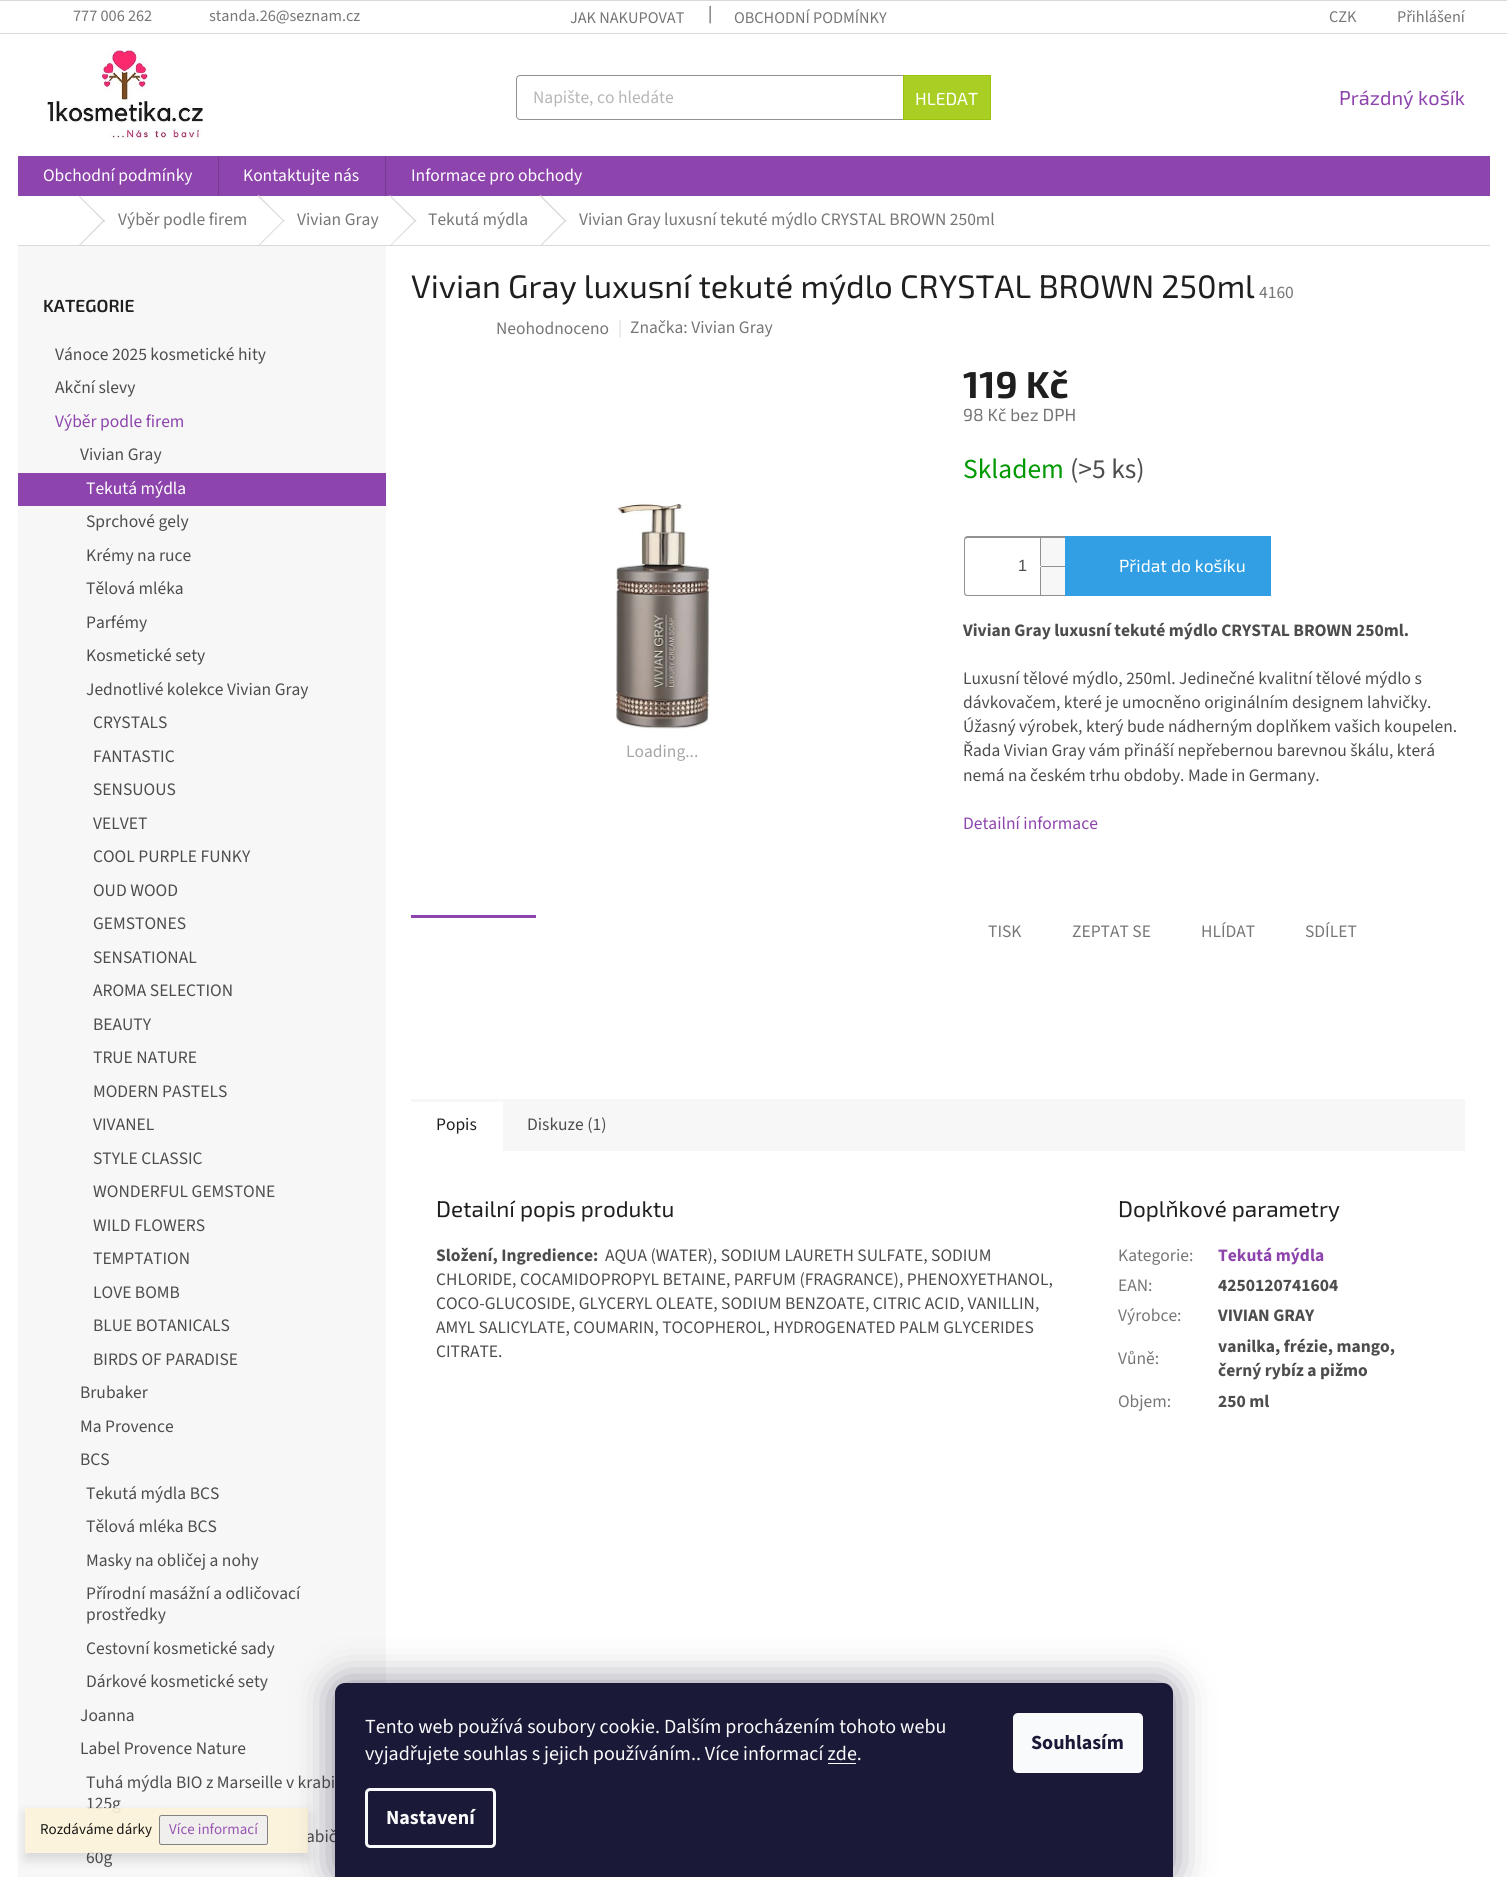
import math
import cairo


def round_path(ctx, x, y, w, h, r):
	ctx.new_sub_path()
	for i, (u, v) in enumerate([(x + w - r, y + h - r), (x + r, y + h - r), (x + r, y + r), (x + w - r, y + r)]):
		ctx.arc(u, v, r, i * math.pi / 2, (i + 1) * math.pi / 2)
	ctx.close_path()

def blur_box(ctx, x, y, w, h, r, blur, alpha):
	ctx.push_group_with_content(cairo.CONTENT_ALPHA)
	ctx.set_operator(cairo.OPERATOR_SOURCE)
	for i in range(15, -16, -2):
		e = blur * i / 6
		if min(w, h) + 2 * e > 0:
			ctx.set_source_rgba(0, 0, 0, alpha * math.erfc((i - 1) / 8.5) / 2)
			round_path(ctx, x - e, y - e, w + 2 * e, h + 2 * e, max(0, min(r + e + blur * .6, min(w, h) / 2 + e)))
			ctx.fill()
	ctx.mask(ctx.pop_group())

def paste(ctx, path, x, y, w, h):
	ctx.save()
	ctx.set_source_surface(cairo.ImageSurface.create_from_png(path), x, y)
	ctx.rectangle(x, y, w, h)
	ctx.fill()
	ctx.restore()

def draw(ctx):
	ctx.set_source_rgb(1, 1, 1)
	ctx.paint()
	ctx.set_source_rgb(0.855, 0.855, 0.855)
	ctx.rectangle(0, 0, 1507, 1)
	ctx.fill()
	ctx.rectangle(0, 33, 1507, 1)
	ctx.fill()
	ctx.select_font_face('Source Sans 3')
	ctx.set_font_size(16.25)
	ctx.set_source_rgb(0.463, 0.463, 0.463)
	for x, y, s in [
		(73, 21, '777 006 262'),
		(209, 21, 'standa.26@seznam.cz'),
		(570, 23, 'JAK NAKUPOVAT'),
	]:
		ctx.move_to(x, y)
		ctx.show_text(s)
	ctx.set_font_size(17.5)
	ctx.set_source_rgb(0.302, 0.302, 0.302)
	ctx.move_to(708, 19)
	ctx.show_text('|')
	ctx.set_font_size(16.25)
	ctx.set_source_rgb(0.463, 0.463, 0.463)
	for x, y, s in [
		(734, 23, 'OBCHODNÍ PODMÍNKY'),
		(1329, 22, 'CZK'),
		(1397, 22, 'Přihlášení'),
	]:
		ctx.move_to(x, y)
		ctx.show_text(s)
	paste(ctx, 'media/1.png', 47, 50, 156, 89)
	round_path(ctx, 516.5, 75.5, 474, 44, 3.5)
	ctx.set_source_rgb(0.569, 0.569, 0.569)
	ctx.set_line_width(1)
	ctx.stroke()
	ctx.set_font_size(17.5)
	ctx.set_source_rgb(0.714, 0.714, 0.714)
	ctx.move_to(533, 103)
	ctx.show_text('Napište, co hledáte')
	ctx.set_source_rgb(0.667, 0.812, 0.141)
	ctx.rectangle(903.5, 75.5, 87, 44)
	ctx.fill_preserve()
	ctx.set_source_rgb(0.608, 0.761, 0.055)
	ctx.stroke()
	ctx.select_font_face('Exo 2')
	ctx.set_source_rgb(1, 1, 1)
	ctx.move_to(915, 105)
	ctx.show_text('HLEDAT')
	ctx.set_font_size(20)
	ctx.set_source_rgb(0.557, 0.267, 0.678)
	ctx.move_to(1339, 105)
	ctx.show_text('Prázdný košík')
	ctx.rectangle(18, 156, 1472, 40)
	ctx.fill()
	ctx.select_font_face('Source Sans 3')
	ctx.set_font_size(17.5)
	ctx.set_source_rgb(1, 1, 1)
	ctx.move_to(43, 181)
	ctx.show_text('Obchodní podmínky')
	ctx.set_source_rgb(0.471, 0.224, 0.576)
	ctx.rectangle(218, 156, 1, 40)
	ctx.fill()
	ctx.set_source_rgb(1, 1, 1)
	ctx.move_to(243, 181)
	ctx.show_text('Kontaktujte nás')
	ctx.set_source_rgb(0.471, 0.224, 0.576)
	ctx.rectangle(385, 156, 1, 40)
	ctx.fill()
	ctx.set_source_rgb(1, 1, 1)
	ctx.move_to(411, 181)
	ctx.show_text('Informace pro obchody')
	ctx.set_source_rgb(0.855, 0.855, 0.855)
	ctx.rectangle(18, 245, 1472, 1)
	ctx.fill()
	ctx.new_path()
	ctx.move_to(79, 197)
	ctx.line_to(79.5, 196)
	ctx.line_to(105, 221)
	ctx.line_to(104, 222)
	ctx.close_path()
	ctx.fill()
	ctx.new_path()
	ctx.move_to(104, 219.5)
	ctx.line_to(105, 220.5)
	ctx.line_to(79.5, 246)
	ctx.line_to(79, 245)
	ctx.close_path()
	ctx.fill()
	ctx.set_source_rgb(0.463, 0.463, 0.463)
	ctx.move_to(118, 225)
	ctx.show_text('Výběr podle firem')
	ctx.set_source_rgb(0.855, 0.855, 0.855)
	ctx.new_path()
	ctx.move_to(257.5, 196)
	ctx.line_to(258.5, 195)
	ctx.line_to(284.5, 221)
	ctx.line_to(284, 222)
	ctx.close_path()
	ctx.fill()
	ctx.set_source_rgb(0.965, 0.965, 0.965)
	ctx.rectangle(18, 246, 368, 1631)
	ctx.fill()
	ctx.set_source_rgb(0.855, 0.855, 0.855)
	ctx.new_path()
	ctx.move_to(284, 219.5)
	ctx.line_to(284.5, 220.5)
	ctx.line_to(258.5, 246.5)
	ctx.line_to(257.5, 246)
	ctx.close_path()
	ctx.fill()
	ctx.set_source_rgb(0.463, 0.463, 0.463)
	ctx.move_to(297, 225)
	ctx.show_text('Vivian Gray')
	ctx.set_source_rgb(0.855, 0.855, 0.855)
	ctx.new_path()
	ctx.move_to(389.5, 196)
	ctx.line_to(390, 195)
	ctx.line_to(416.5, 221)
	ctx.line_to(415.5, 222)
	ctx.close_path()
	ctx.fill()
	ctx.new_path()
	ctx.move_to(415.5, 219.5)
	ctx.line_to(416.5, 220.5)
	ctx.line_to(390, 246.5)
	ctx.line_to(389.5, 246)
	ctx.close_path()
	ctx.fill()
	ctx.set_source_rgb(0.463, 0.463, 0.463)
	ctx.move_to(428, 225)
	ctx.show_text('Tekutá mýdla')
	ctx.set_source_rgb(0.855, 0.855, 0.855)
	ctx.new_path()
	ctx.move_to(539.5, 196)
	ctx.line_to(540.5, 195)
	ctx.line_to(566.5, 221)
	ctx.line_to(565.5, 222)
	ctx.close_path()
	ctx.fill()
	ctx.new_path()
	ctx.move_to(565.5, 219.5)
	ctx.line_to(566.5, 220.5)
	ctx.line_to(540.5, 246.5)
	ctx.line_to(539.5, 246)
	ctx.close_path()
	ctx.fill()
	ctx.set_source_rgb(0.463, 0.463, 0.463)
	ctx.move_to(579, 225)
	ctx.show_text('Vivian Gray luxusní tekuté mýdlo CRYSTAL BROWN 250ml')
	ctx.select_font_face('Exo 2 SemiBold')
	ctx.set_source_rgb(0.122, 0.122, 0.122)
	ctx.move_to(43, 312)
	ctx.show_text('KATEGORIE')
	ctx.select_font_face('Source Sans 3')
	ctx.set_source_rgb(0.302, 0.302, 0.302)
	ctx.move_to(55, 360)
	ctx.show_text('Vánoce 2025 kosmetické hity')
	ctx.move_to(55, 393)
	ctx.show_text('Akční slevy')
	ctx.set_source_rgb(0.557, 0.267, 0.678)
	ctx.move_to(55, 427)
	ctx.show_text('Výběr podle firem')
	ctx.set_source_rgb(0.302, 0.302, 0.302)
	ctx.move_to(80, 460)
	ctx.show_text('Vivian Gray')
	ctx.set_source_rgb(0.557, 0.267, 0.678)
	ctx.rectangle(18, 473, 368, 33)
	ctx.fill()
	ctx.set_source_rgb(1, 1, 1)
	ctx.move_to(86, 494)
	ctx.show_text('Tekutá mýdla')
	ctx.set_source_rgb(0.302, 0.302, 0.302)
	for x, y, s in [
		(86, 527, 'Sprchové gely'),
		(86, 561, 'Krémy na ruce'),
		(86, 594, 'Tělová mléka'),
		(86, 628, 'Parfémy'),
		(86, 661, 'Kosmetické sety'),
		(86, 695, 'Jednotlivé kolekce Vivian Gray'),
		(93, 728, 'CRYSTALS'),
		(93, 762, 'FANTASTIC'),
		(93, 795, 'SENSUOUS'),
		(93, 829, 'VELVET'),
		(93, 862, 'COOL PURPLE FUNKY'),
		(93, 896, 'OUD WOOD'),
		(93, 929, 'GEMSTONES'),
		(93, 963, 'SENSATIONAL'),
		(93, 996, 'AROMA SELECTION'),
		(93, 1030, 'BEAUTY'),
		(93, 1063, 'TRUE NATURE'),
		(93, 1097, 'MODERN PASTELS'),
		(93, 1130, 'VIVANEL'),
		(93, 1164, 'STYLE CLASSIC'),
		(93, 1197, 'WONDERFUL GEMSTONE'),
		(93, 1231, 'WILD FLOWERS'),
		(93, 1264, 'TEMPTATION'),
		(93, 1298, 'LOVE BOMB'),
		(93, 1331, 'BLUE BOTANICALS'),
		(93, 1365, 'BIRDS OF PARADISE'),
		(80, 1398, 'Brubaker'),
		(80, 1432, 'Ma Provence'),
		(80, 1465, 'BCS'),
		(86, 1499, 'Tekutá mýdla BCS'),
		(86, 1532, 'Tělová mléka BCS'),
		(86, 1566, 'Masky na obličej a nohy'),
		(86, 1599, 'Přírodní masážní a odličovací'),
		(86, 1620, 'prostředky'),
		(86, 1654, 'Cestovní kosmetické sady'),
		(86, 1687, 'Dárkové kosmetické sety'),
		(80, 1721, 'Joanna'),
		(80, 1754, 'Label Provence Nature'),
		(86, 1788, 'Tuhá mýdla BIO z Marseille v krabi'),
		(86, 1809, '125g'),
		(306, 1842, 'abič'),
		(86, 1863, '60g'),
	]:
		ctx.move_to(x, y)
		ctx.show_text(s)
	ctx.select_font_face('Exo 2')
	ctx.set_font_size(32.5)
	ctx.set_source_rgb(0.122, 0.122, 0.122)
	ctx.move_to(411, 298)
	ctx.show_text('Vivian Gray luxusní tekuté mýdlo CRYSTAL BROWN 250ml')
	ctx.select_font_face('Source Sans 3')
	ctx.set_font_size(17.5)
	ctx.set_source_rgb(0.463, 0.463, 0.463)
	ctx.move_to(1259, 298)
	ctx.show_text('4160')
	ctx.move_to(496, 334)
	ctx.show_text('Neohodnoceno')
	ctx.set_source_rgb(0.855, 0.855, 0.855)
	ctx.move_to(618, 333)
	ctx.show_text('|')
	ctx.set_source_rgb(0.463, 0.463, 0.463)
	ctx.move_to(630, 333)
	ctx.show_text('Značka: Vivian Gray')
	paste(ctx, 'media/2.png', 615, 502, 95, 227)
	ctx.set_source_rgb(0.651, 0.651, 0.651)
	ctx.move_to(626, 757)
	ctx.show_text('Loading...')
	ctx.set_source_rgb(0.557, 0.267, 0.678)
	ctx.rectangle(411, 915, 125, 3)
	ctx.fill()
	ctx.select_font_face('Exo 2', cairo.FONT_SLANT_NORMAL, cairo.FONT_WEIGHT_BOLD)
	ctx.set_font_size(37.5)
	ctx.set_source_rgb(0.122, 0.122, 0.122)
	ctx.move_to(963, 398)
	ctx.show_text('119 Kč')
	ctx.select_font_face('Exo 2')
	ctx.set_font_size(17.5)
	ctx.set_source_rgb(0.463, 0.463, 0.463)
	ctx.move_to(963, 421)
	ctx.show_text('98 Kč bez DPH')
	ctx.select_font_face('Source Sans 3')
	ctx.set_font_size(27.5)
	ctx.set_source_rgb(0, 0.6, 0.004)
	ctx.move_to(963, 478)
	ctx.show_text('Skladem')
	ctx.set_source_rgb(0.302, 0.302, 0.302)
	ctx.move_to(1070, 478)
	ctx.show_text('(>5 ks)')
	ctx.set_source_rgb(0.569, 0.569, 0.569)
	ctx.set_fill_rule(cairo.FILL_RULE_EVEN_ODD)
	ctx.new_path()
	ctx.move_to(968, 536)
	ctx.line_to(1065, 536)
	ctx.line_to(1065, 596)
	ctx.line_to(968, 596)
	ctx.curve_to(965, 596, 964, 595, 964, 592)
	ctx.line_to(964, 540)
	ctx.curve_to(964, 538, 965, 536, 968, 536)
	ctx.close_path()
	ctx.move_to(968, 538)
	ctx.line_to(1065, 538)
	ctx.line_to(1065, 595)
	ctx.line_to(968, 595)
	ctx.curve_to(966, 595, 965, 594, 965, 592)
	ctx.line_to(965, 540)
	ctx.curve_to(965, 539, 966, 538, 968, 538)
	ctx.close_path()
	ctx.fill()
	ctx.select_font_face('Liberation Sans')
	ctx.set_font_size(16.25)
	ctx.set_source_rgb(0.302, 0.302, 0.302)
	ctx.move_to(1018, 571)
	ctx.show_text('1')
	ctx.set_source_rgb(0.965, 0.965, 0.965)
	ctx.rectangle(1041, 538, 24, 28)
	ctx.fill()
	ctx.set_source_rgb(0.569, 0.569, 0.569)
	ctx.rectangle(1040, 538, 1, 28)
	ctx.fill()
	ctx.set_source_rgb(0.965, 0.965, 0.965)
	ctx.rectangle(1041, 567, 24, 28)
	ctx.fill()
	ctx.set_source_rgb(0.569, 0.569, 0.569)
	ctx.rectangle(1040, 566, 25, 1)
	ctx.rectangle(1040, 566, 1, 29)
	ctx.fill()
	ctx.set_source_rgb(0.196, 0.624, 0.898)
	ctx.rectangle(1065, 536, 206, 60)
	ctx.fill()
	ctx.select_font_face('Exo 2')
	ctx.set_font_size(17.5)
	ctx.set_source_rgb(1, 1, 1)
	ctx.move_to(1119, 572)
	ctx.show_text('Přidat do košíku')
	ctx.select_font_face('Source Sans 3', cairo.FONT_SLANT_NORMAL, cairo.FONT_WEIGHT_BOLD)
	ctx.set_source_rgb(0.302, 0.302, 0.302)
	ctx.move_to(963, 636)
	ctx.show_text('Vivian Gray luxusní tekuté mýdlo CRYSTAL BROWN 250ml.')
	ctx.select_font_face('Source Sans 3')
	for x, y, s in [
		(963, 684, 'Luxusní tělové mýdlo, 250ml. Jedinečné kvalitní tělové mýdlo s'),
		(963, 708, 'dávkovačem, které je umocněno originálním designem lahvičky.'),
		(963, 732, 'Úžasný výrobek, který bude nádherným doplňkem vašich koupelen.'),
		(963, 756, 'Řada Vivian Gray vám přináší nepřebernou barevnou škálu, která'),
		(963, 781, 'nemá na českém trhu obdoby. Made in Germany.'),
	]:
		ctx.move_to(x, y)
		ctx.show_text(s)
	ctx.set_source_rgb(0.557, 0.267, 0.678)
	ctx.move_to(963, 829)
	ctx.show_text('Detailní informace')
	ctx.set_source_rgb(0.463, 0.463, 0.463)
	for x, y, s in [
		(988, 937, 'TISK'),
		(1072, 937, 'ZEPTAT SE'),
		(1201, 937, 'HLÍDAT'),
		(1305, 937, 'SDÍLET'),
	]:
		ctx.move_to(x, y)
		ctx.show_text(s)
	ctx.set_source_rgb(0.965, 0.965, 0.965)
	ctx.rectangle(503, 1099, 962, 52)
	ctx.fill()
	ctx.rectangle(411, 1099, 92, 3)
	ctx.fill()
	ctx.set_source_rgb(0.122, 0.122, 0.122)
	ctx.move_to(436, 1130)
	ctx.show_text('Popis')
	ctx.set_source_rgb(0.302, 0.302, 0.302)
	ctx.move_to(527, 1130)
	ctx.show_text('Diskuze (1)')
	ctx.select_font_face('Exo 2')
	ctx.set_font_size(22.5)
	ctx.set_source_rgb(0.122, 0.122, 0.122)
	ctx.move_to(436, 1217)
	ctx.show_text('Detailní popis produktu')
	ctx.select_font_face('Source Sans 3', cairo.FONT_SLANT_NORMAL, cairo.FONT_WEIGHT_BOLD)
	ctx.set_font_size(17.5)
	ctx.set_source_rgb(0.302, 0.302, 0.302)
	ctx.move_to(436, 1261)
	ctx.show_text('Složení, Ingredience:')
	ctx.select_font_face('Source Sans 3')
	for x, y, s in [
		(605, 1261, 'AQUA (WATER), SODIUM LAURETH SULFATE, SODIUM'),
		(436, 1285, 'CHLORIDE, COCAMIDOPROPYL BETAINE, PARFUM (FRAGRANCE), PHENOXYETHANOL,'),
		(436, 1309, 'COCO-GLUCOSIDE, GLYCERYL OLEATE, SODIUM BENZOATE, CITRIC ACID, VANILLIN,'),
		(436, 1333, 'AMYL SALICYLATE, COUMARIN, TOCOPHEROL, HYDROGENATED PALM GLYCERIDES'),
		(436, 1357, 'CITRATE.'),
	]:
		ctx.move_to(x, y)
		ctx.show_text(s)
	ctx.select_font_face('Exo 2')
	ctx.set_font_size(22.5)
	ctx.set_source_rgb(0.122, 0.122, 0.122)
	ctx.move_to(1118, 1217)
	ctx.show_text('Doplňkové parametry')
	ctx.select_font_face('Source Sans 3')
	ctx.set_font_size(17.5)
	ctx.set_source_rgb(0.463, 0.463, 0.463)
	ctx.move_to(1118, 1261)
	ctx.show_text('Kategorie:')
	ctx.select_font_face('Source Sans 3', cairo.FONT_SLANT_NORMAL, cairo.FONT_WEIGHT_BOLD)
	ctx.set_source_rgb(0.557, 0.267, 0.678)
	ctx.move_to(1218, 1261)
	ctx.show_text('Tekutá mýdla')
	ctx.select_font_face('Source Sans 3')
	ctx.set_source_rgb(0.463, 0.463, 0.463)
	ctx.move_to(1118, 1291)
	ctx.show_text('EAN:')
	ctx.select_font_face('Source Sans 3', cairo.FONT_SLANT_NORMAL, cairo.FONT_WEIGHT_BOLD)
	ctx.set_source_rgb(0.302, 0.302, 0.302)
	ctx.move_to(1218, 1291)
	ctx.show_text('4250120741604')
	ctx.select_font_face('Source Sans 3')
	ctx.set_source_rgb(0.463, 0.463, 0.463)
	ctx.move_to(1118, 1321)
	ctx.show_text('Výrobce:')
	ctx.select_font_face('Source Sans 3', cairo.FONT_SLANT_NORMAL, cairo.FONT_WEIGHT_BOLD)
	ctx.set_source_rgb(0.302, 0.302, 0.302)
	ctx.move_to(1218, 1321)
	ctx.show_text('VIVIAN GRAY')
	ctx.select_font_face('Source Sans 3')
	ctx.set_source_rgb(0.463, 0.463, 0.463)
	ctx.move_to(1118, 1364)
	ctx.show_text('Vůně:')
	ctx.select_font_face('Source Sans 3', cairo.FONT_SLANT_NORMAL, cairo.FONT_WEIGHT_BOLD)
	ctx.set_source_rgb(0.302, 0.302, 0.302)
	ctx.move_to(1218, 1352)
	ctx.show_text('vanilka, frézie, mango,')
	ctx.move_to(1218, 1376)
	ctx.show_text('černý rybíz a pižmo')
	ctx.select_font_face('Source Sans 3')
	ctx.set_source_rgb(0.463, 0.463, 0.463)
	ctx.move_to(1118, 1407)
	ctx.show_text('Objem:')
	ctx.select_font_face('Source Sans 3', cairo.FONT_SLANT_NORMAL, cairo.FONT_WEIGHT_BOLD)
	ctx.set_source_rgb(0.302, 0.302, 0.302)
	ctx.move_to(1218, 1407)
	ctx.show_text('250 ml')
	ctx.save()
	ctx.new_path()
	ctx.move_to(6, 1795)
	ctx.line_to(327, 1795)
	ctx.line_to(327, 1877)
	ctx.line_to(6, 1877)
	ctx.close_path()
	ctx.move_to(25, 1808)
	ctx.line_to(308, 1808)
	ctx.line_to(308, 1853)
	ctx.line_to(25, 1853)
	ctx.close_path()
	ctx.clip()
	ctx.set_source_rgb(0, 0, 0)
	blur_box(ctx, 25, 1814, 283, 45, 0, 6, 0.14)
	ctx.restore()
	ctx.set_source_rgba(0.992, 0.953, 0.855, 0.9)
	ctx.rectangle(25, 1808, 283, 45)
	ctx.fill()
	ctx.select_font_face('Source Sans 3')
	ctx.set_font_size(15)
	ctx.set_source_rgb(0.098, 0.094, 0.086)
	ctx.move_to(40, 1834)
	ctx.show_text('Rozdáváme dárky')
	ctx.set_source_rgba(0.937, 0.937, 0.937, 0.9)
	round_path(ctx, 159, 1815, 109, 30, 2.5)
	ctx.fill()
	round_path(ctx, 159.5, 1815.5, 108, 29, 2)
	ctx.set_source_rgba(0.463, 0.463, 0.463, 0.9)
	ctx.stroke()
	ctx.set_source_rgb(0.596, 0.333, 0.702)
	ctx.move_to(169, 1834)
	ctx.show_text('Více informací')
	ctx.set_source_rgb(0.106, 0.098, 0.224)
	blur_box(ctx, 335, 1683, 838, 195, 10, 19, 0.5)
	ctx.set_source_rgb(0.102, 0.098, 0.216)
	ctx.new_path()
	ctx.move_to(345, 1683)
	ctx.line_to(1163, 1683)
	ctx.curve_to(1168.5, 1683, 1173, 1687.5, 1173, 1693)
	ctx.line_to(1173, 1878)
	ctx.line_to(335, 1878)
	ctx.line_to(335, 1693)
	ctx.curve_to(335, 1687.5, 339.5, 1683, 345, 1683)
	ctx.close_path()
	ctx.fill()
	ctx.set_font_size(20)
	ctx.set_source_rgb(0.973, 0.98, 0.984)
	ctx.move_to(365, 1733)
	ctx.show_text('Tento web používá soubory cookie. Dalším procházením tohoto webu')
	ctx.move_to(365, 1760)
	ctx.show_text('vyjadřujete souhlas s jejich používáním.. Více informací zde.')
	ctx.rectangle(828, 1763, 28, 1)
	ctx.fill()
	round_path(ctx, 366.5, 1789.5, 128, 57, 3.5)
	ctx.set_line_width(3)
	ctx.stroke()
	ctx.select_font_face('Source Sans 3', cairo.FONT_SLANT_NORMAL, cairo.FONT_WEIGHT_BOLD)
	ctx.move_to(386, 1824)
	ctx.show_text('Nastavení')
	round_path(ctx, 1013, 1713, 130, 60, 5)
	ctx.fill()
	ctx.set_source_rgb(0.102, 0.098, 0.216)
	ctx.move_to(1031, 1749)
	ctx.show_text('Souhlasím')


surface = cairo.ImageSurface(cairo.FORMAT_RGB24, 1507, 1877)
ctx = cairo.Context(surface)
options = cairo.FontOptions()
options.set_hint_metrics(cairo.HINT_METRICS_OFF)
options.set_hint_style(cairo.HINT_STYLE_NONE)
ctx.set_font_options(options)
ctx.set_miter_limit(4)
draw(ctx)
surface.write_to_png('image.png')
